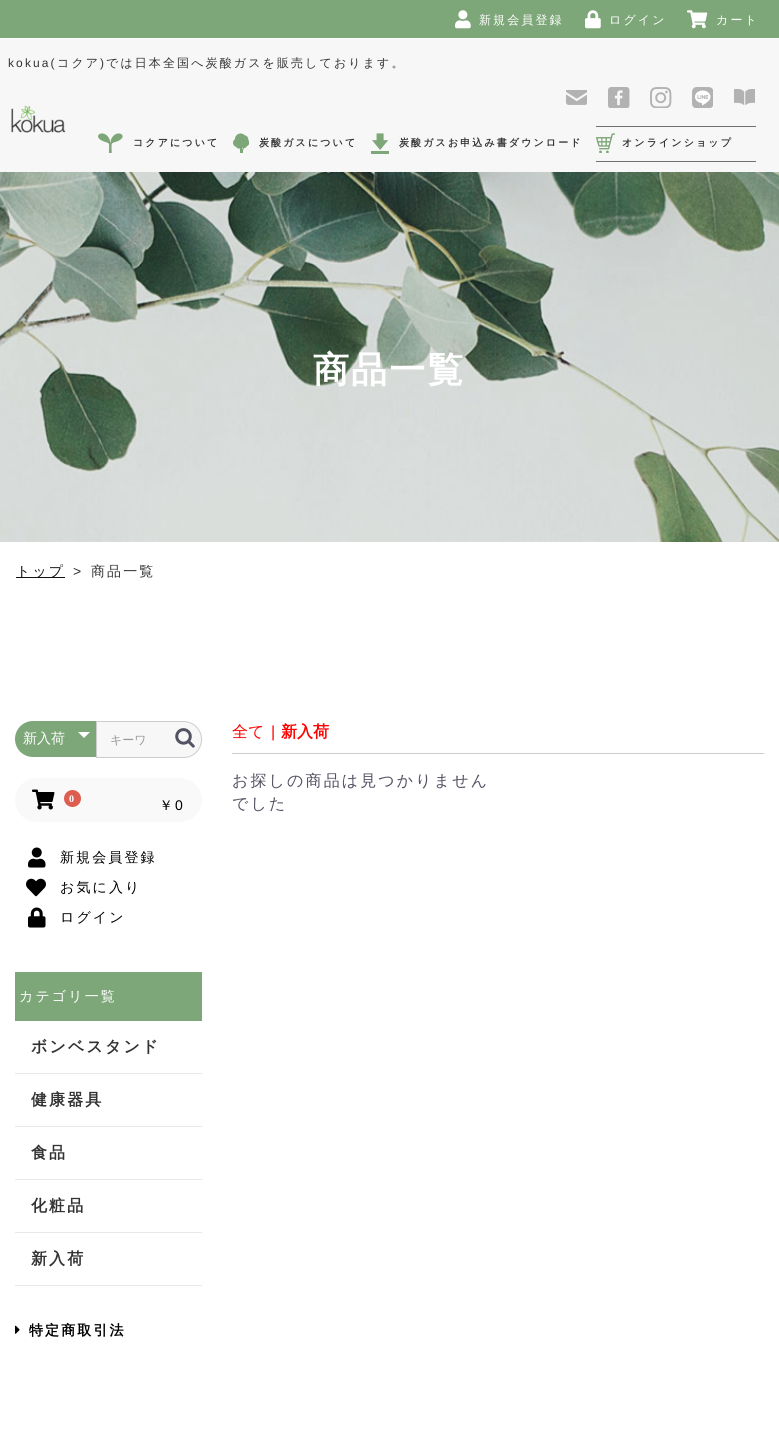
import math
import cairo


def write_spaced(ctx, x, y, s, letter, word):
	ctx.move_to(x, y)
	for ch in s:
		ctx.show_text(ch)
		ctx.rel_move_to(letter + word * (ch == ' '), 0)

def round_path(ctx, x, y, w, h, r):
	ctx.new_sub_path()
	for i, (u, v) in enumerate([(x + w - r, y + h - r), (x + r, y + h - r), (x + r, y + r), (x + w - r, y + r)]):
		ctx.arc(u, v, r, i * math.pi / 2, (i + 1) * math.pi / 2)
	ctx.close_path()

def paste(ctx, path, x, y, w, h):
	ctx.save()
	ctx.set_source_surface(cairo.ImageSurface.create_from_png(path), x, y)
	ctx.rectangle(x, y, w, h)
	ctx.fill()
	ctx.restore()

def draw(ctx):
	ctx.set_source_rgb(0.965, 0.965, 0.965)
	ctx.paint()
	ctx.set_source_rgb(1, 1, 1)
	ctx.rectangle(0, 542, 779, 912)
	ctx.fill()
	ctx.set_source_rgb(0.494, 0.655, 0.475)
	ctx.rectangle(0, 0, 779, 38)
	ctx.fill()
	ctx.set_source_rgb(1, 1, 1)
	ctx.rectangle(0, 38, 779, 1)
	ctx.fill()
	paste(ctx, 'media/1.png', 455, 10, 16, 19)
	ctx.select_font_face('WenQuanYi Zen Hei Medium')
	ctx.set_font_size(12)
	write_spaced(ctx, 479, 24, '新規会員登録', 2.1, 0)
	paste(ctx, 'media/2.png', 585, 10, 16, 19)
	write_spaced(ctx, 609, 24, 'ログイン', 2.1, 0)
	paste(ctx, 'media/3.png', 687, 10, 21, 19)
	write_spaced(ctx, 716, 24, 'カート', 2.1, 0)
	ctx.select_font_face('Liberation Sans')
	ctx.set_source_rgb(0.2, 0.2, 0.2)
	write_spaced(ctx, 8, 67, 'kokua(', 2.1, 0)
	ctx.select_font_face('WenQuanYi Zen Hei Medium')
	write_spaced(ctx, 57, 67, 'コクア', 2.1, 0)
	ctx.select_font_face('Liberation Sans')
	write_spaced(ctx, 100, 67, ')', 2.1, 0)
	ctx.select_font_face('WenQuanYi Zen Hei Medium')
	write_spaced(ctx, 106, 67, 'では日本全国へ炭酸ガスを販売しております。', 2.1, 0)
	paste(ctx, 'media/4.png', 11, 105, 55, 28)
	paste(ctx, 'media/5.png', 566, 90, 21, 15)
	paste(ctx, 'media/6.png', 608, 87, 22, 21)
	paste(ctx, 'media/7.png', 650, 87, 22, 21)
	paste(ctx, 'media/8.png', 692, 87, 21, 21)
	paste(ctx, 'media/9.png', 734, 89, 21, 16)
	paste(ctx, 'media/10.png', 98, 133, 25, 20)
	ctx.select_font_face('WenQuanYi Zen Hei', cairo.FONT_SLANT_NORMAL, cairo.FONT_WEIGHT_BOLD)
	ctx.set_font_size(10)
	write_spaced(ctx, 133, 146, 'コクアについて', 2.1, 0)
	paste(ctx, 'media/11.png', 233, 133, 16, 20)
	write_spaced(ctx, 259, 146, '炭酸ガスについて', 2.1, 0)
	paste(ctx, 'media/12.png', 371, 133, 18, 21)
	write_spaced(ctx, 399, 146, '炭酸ガスお申込み書ダウンロード', 2.1, 0)
	ctx.set_source_rgb(0.439, 0.439, 0.439)
	ctx.rectangle(596, 126, 160, 1)
	ctx.fill()
	ctx.rectangle(596, 161, 160, 1)
	ctx.fill()
	paste(ctx, 'media/13.png', 596, 133, 19, 20)
	ctx.set_source_rgb(0.2, 0.2, 0.2)
	write_spaced(ctx, 622, 146, 'オンラインショップ', 2.1, 0)
	paste(ctx, 'media/14.png', 0, 172, 779, 370)
	ctx.set_font_size(36)
	ctx.set_source_rgb(1, 1, 1)
	write_spaced(ctx, 313, 382, '商品一覧', 2.1, 0)
	ctx.set_source_rgb(0.067, 0.067, 0.067)
	ctx.rectangle(16, 577, 49, 1)
	ctx.fill()
	ctx.select_font_face('WenQuanYi Zen Hei Medium')
	ctx.set_font_size(14)
	write_spaced(ctx, 16, 576, 'トップ', 2.1, 0)
	ctx.select_font_face('Liberation Sans')
	ctx.set_source_rgb(0.2, 0.2, 0.2)
	write_spaced(ctx, 73, 576, '>', 2.1, 0)
	ctx.select_font_face('WenQuanYi Zen Hei Medium')
	write_spaced(ctx, 91, 576, '商品一覧', 2.1, 0)
	ctx.set_source_rgb(0.494, 0.655, 0.475)
	ctx.new_path()
	ctx.move_to(33, 721)
	ctx.line_to(96, 721)
	ctx.line_to(96, 757)
	ctx.line_to(33, 757)
	ctx.curve_to(23, 757, 15, 749, 15, 739)
	ctx.curve_to(15, 729, 23, 721, 33, 721)
	ctx.close_path()
	ctx.fill()
	ctx.set_source_rgb(1, 1, 1)
	ctx.move_to(23, 743)
	ctx.show_text('新入荷')
	ctx.new_path()
	ctx.move_to(78, 732)
	ctx.line_to(90, 732)
	ctx.line_to(84, 738)
	ctx.close_path()
	ctx.fill()
	ctx.set_source_rgb(0.965, 0.965, 0.965)
	ctx.new_path()
	ctx.move_to(96.5, 721.5)
	ctx.line_to(183.5, 721.5)
	ctx.curve_to(193.5, 721.5, 201.5, 729.5, 201.5, 739.5)
	ctx.curve_to(201.5, 749.5, 193.5, 757.5, 183.5, 757.5)
	ctx.line_to(96.5, 757.5)
	ctx.close_path()
	ctx.fill_preserve()
	ctx.set_source_rgb(0.8, 0.8, 0.8)
	ctx.set_line_width(1)
	ctx.stroke()
	ctx.set_font_size(12)
	ctx.set_source_rgb(0.6, 0.6, 0.6)
	ctx.move_to(110, 744)
	ctx.show_text('キーワ')
	paste(ctx, 'media/15.png', 175, 728, 20, 20)
	ctx.set_source_rgb(0.973, 0.973, 0.973)
	round_path(ctx, 15, 778, 187, 44, 22)
	ctx.fill()
	paste(ctx, 'media/16.png', 32, 789, 23, 21)
	ctx.set_source_rgb(0.871, 0.365, 0.314)
	ctx.arc(72.5, 798.5, 8.5, 0, 2 * math.pi)
	ctx.fill()
	ctx.select_font_face('Liberation Serif', cairo.FONT_SLANT_NORMAL, cairo.FONT_WEIGHT_BOLD)
	ctx.set_font_size(10)
	ctx.set_source_rgb(1, 1, 1)
	write_spaced(ctx, 69, 802, '0', 2.1, 0)
	ctx.select_font_face('WenQuanYi Zen Hei Medium')
	ctx.set_font_size(14)
	ctx.set_source_rgb(0, 0, 0)
	write_spaced(ctx, 159, 810, '￥', 2.1, 0)
	ctx.select_font_face('Liberation Sans')
	write_spaced(ctx, 175, 810, '0', 2.1, 0)
	paste(ctx, 'media/17.png', 28, 847, 18, 21)
	ctx.select_font_face('WenQuanYi Zen Hei Medium')
	write_spaced(ctx, 60, 862, '新規会員登録', 2.1, 0)
	paste(ctx, 'media/18.png', 26, 878, 20, 19)
	write_spaced(ctx, 60, 892, 'お気に入り', 2.1, 0)
	paste(ctx, 'media/19.png', 28, 907, 18, 21)
	write_spaced(ctx, 60, 922, 'ログイン', 2.1, 0)
	ctx.set_source_rgb(0.494, 0.655, 0.475)
	ctx.rectangle(15, 972, 187, 49)
	ctx.fill()
	ctx.set_source_rgb(1, 1, 1)
	write_spaced(ctx, 19, 1001, 'カテゴリ一覧', 2.1, 0)
	ctx.set_source_rgb(0.91, 0.91, 0.91)
	ctx.rectangle(15, 1073, 187, 1)
	ctx.fill()
	ctx.select_font_face('WenQuanYi Zen Hei', cairo.FONT_SLANT_NORMAL, cairo.FONT_WEIGHT_BOLD)
	ctx.set_font_size(16)
	ctx.set_source_rgb(0.2, 0.2, 0.2)
	write_spaced(ctx, 31, 1052, 'ボンベスタンド', 2.1, 0)
	ctx.set_source_rgb(0.91, 0.91, 0.91)
	ctx.rectangle(15, 1126, 187, 1)
	ctx.fill()
	ctx.set_source_rgb(0.2, 0.2, 0.2)
	write_spaced(ctx, 31, 1105, '健康器具', 2.1, 0)
	ctx.set_source_rgb(0.91, 0.91, 0.91)
	ctx.rectangle(15, 1179, 187, 1)
	ctx.fill()
	ctx.set_source_rgb(0.2, 0.2, 0.2)
	write_spaced(ctx, 31, 1158, '食品', 2.1, 0)
	ctx.set_source_rgb(0.91, 0.91, 0.91)
	ctx.rectangle(15, 1232, 187, 1)
	ctx.fill()
	ctx.set_source_rgb(0.2, 0.2, 0.2)
	write_spaced(ctx, 31, 1211, '化粧品', 2.1, 0)
	ctx.set_source_rgb(0.91, 0.91, 0.91)
	ctx.rectangle(15, 1285, 187, 1)
	ctx.fill()
	ctx.set_source_rgb(0.2, 0.2, 0.2)
	write_spaced(ctx, 31, 1264, '新入荷', 2.1, 0)
	paste(ctx, 'media/20.png', 15, 1325, 5, 9)
	ctx.set_font_size(14)
	ctx.set_source_rgb(0, 0, 0)
	write_spaced(ctx, 29, 1335, '特定商取引法', 2.1, 0)
	ctx.select_font_face('WenQuanYi Zen Hei Medium')
	ctx.set_font_size(16)
	ctx.set_source_rgb(1, 0, 0)
	ctx.move_to(232, 737)
	ctx.show_text('全て')
	ctx.select_font_face('Liberation Sans')
	ctx.move_to(271, 737)
	ctx.show_text('|')
	ctx.select_font_face('WenQuanYi Zen Hei', cairo.FONT_SLANT_NORMAL, cairo.FONT_WEIGHT_BOLD)
	ctx.move_to(281, 737)
	ctx.show_text('新入荷')
	ctx.set_source_rgb(0.8, 0.8, 0.8)
	ctx.rectangle(232, 753, 532, 1)
	ctx.fill()
	ctx.select_font_face('WenQuanYi Zen Hei Medium')
	ctx.set_source_rgb(0.322, 0.322, 0.388)
	write_spaced(ctx, 232, 786, 'お探しの商品は見つかりません', 2.1, 0)
	write_spaced(ctx, 232, 809, 'でした', 2.1, 0)


surface = cairo.ImageSurface(cairo.FORMAT_RGB24, 779, 1454)
ctx = cairo.Context(surface)
options = cairo.FontOptions()
options.set_hint_metrics(cairo.HINT_METRICS_OFF)
options.set_hint_style(cairo.HINT_STYLE_NONE)
ctx.set_font_options(options)
ctx.set_miter_limit(4)
draw(ctx)
surface.write_to_png('image.png')
